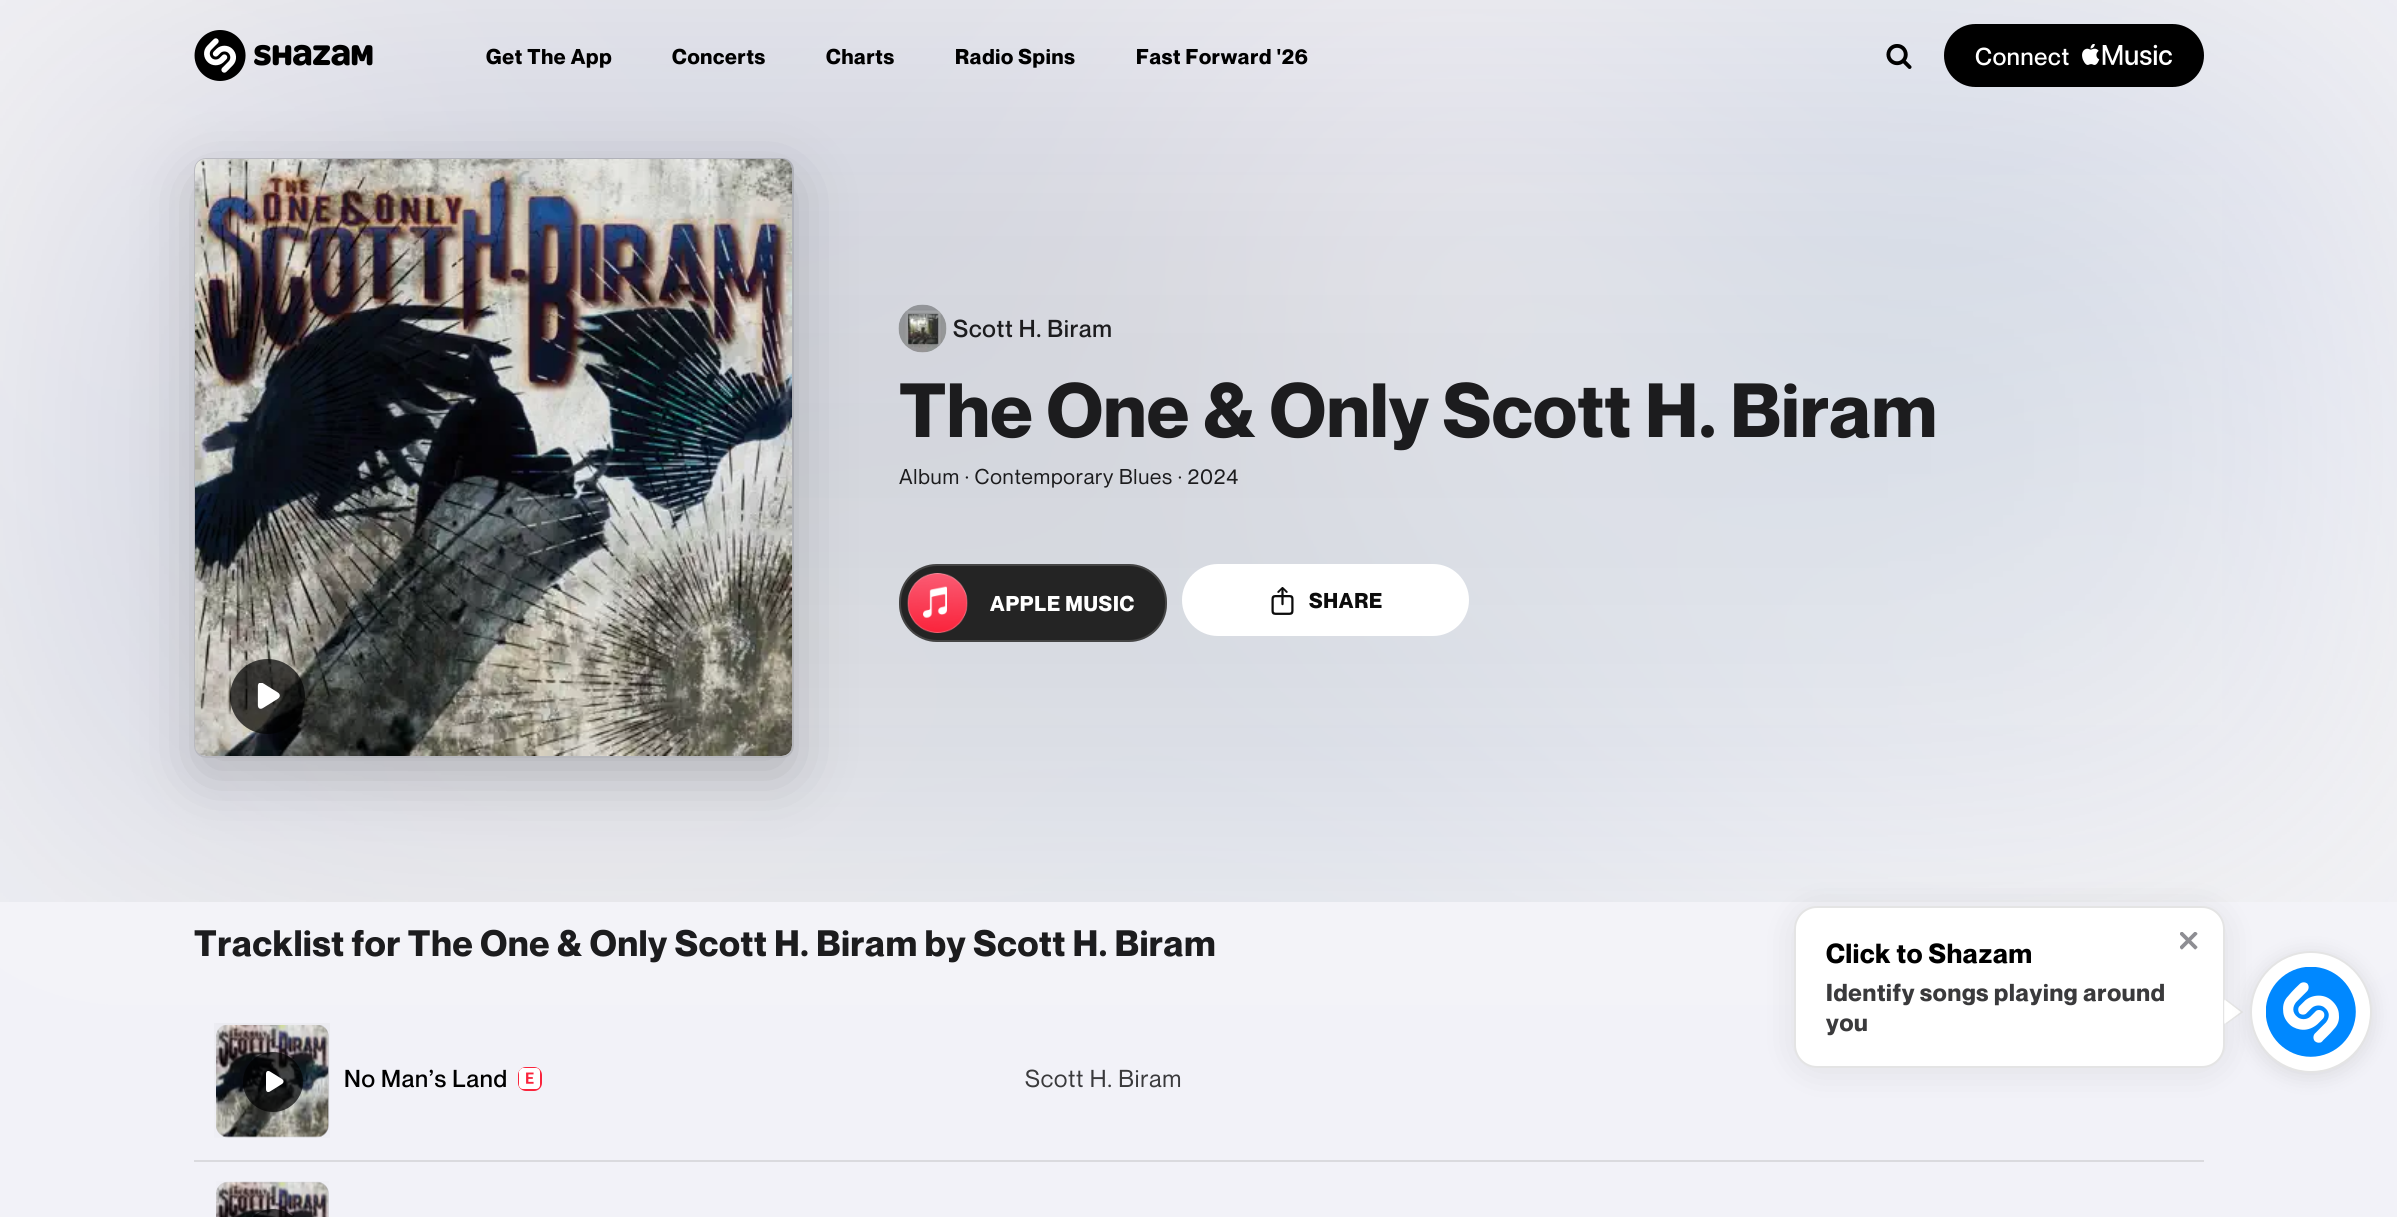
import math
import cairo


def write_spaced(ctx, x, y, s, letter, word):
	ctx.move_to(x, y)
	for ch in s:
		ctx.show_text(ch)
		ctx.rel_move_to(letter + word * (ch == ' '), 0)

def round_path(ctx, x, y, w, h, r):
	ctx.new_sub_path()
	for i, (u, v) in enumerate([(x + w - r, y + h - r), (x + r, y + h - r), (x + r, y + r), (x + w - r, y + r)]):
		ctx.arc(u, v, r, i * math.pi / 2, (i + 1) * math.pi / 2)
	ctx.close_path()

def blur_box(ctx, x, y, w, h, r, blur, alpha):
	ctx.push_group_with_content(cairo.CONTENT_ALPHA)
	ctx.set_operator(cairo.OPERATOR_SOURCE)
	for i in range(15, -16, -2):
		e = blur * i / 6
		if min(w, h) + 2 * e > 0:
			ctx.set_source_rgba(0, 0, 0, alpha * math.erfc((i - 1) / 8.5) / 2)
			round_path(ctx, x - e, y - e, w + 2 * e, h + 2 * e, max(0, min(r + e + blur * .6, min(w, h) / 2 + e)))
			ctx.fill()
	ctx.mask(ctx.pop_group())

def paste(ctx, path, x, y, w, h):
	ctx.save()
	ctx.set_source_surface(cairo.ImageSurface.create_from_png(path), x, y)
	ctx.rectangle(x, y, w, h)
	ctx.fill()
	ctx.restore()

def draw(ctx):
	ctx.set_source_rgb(0.949, 0.949, 0.969)
	ctx.paint()
	ctx.set_source_rgb(0.855, 0.855, 0.871)
	ctx.rectangle(194, 1160, 2010, 2)
	ctx.fill()
	ctx.set_source_rgb(1, 1, 1)
	blur_box(ctx, 0, 0, 2397, 900, 0, 210, 0.14)
	paste(ctx, 'media/4.png', 0, 0, 2397, 902)
	paste(ctx, 'media/1.png', 194, 30, 179, 51)
	ctx.select_font_face('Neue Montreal', cairo.FONT_SLANT_NORMAL, cairo.FONT_WEIGHT_BOLD)
	ctx.set_font_size(21)
	ctx.set_source_rgb(0, 0, 0)
	for x, y, s in [
		(486, 64, 'Get The App'),
		(672, 64, 'Concerts'),
		(826, 64, 'Charts'),
		(955, 64, 'Radio Spins'),
		(1136, 64, 'Fast Forward \'26'),
	]:
		write_spaced(ctx, x, y, s, 0.75, 0)
	paste(ctx, 'media/2.png', 1886, 44, 26, 25)
	round_path(ctx, 1944, 24, 260, 63, 31.5)
	ctx.fill()
	ctx.select_font_face('Neue Montreal Medium')
	ctx.set_font_size(24)
	ctx.set_source_rgb(1, 1, 1)
	write_spaced(ctx, 1975, 65, 'Connect', 0.75, 0)
	paste(ctx, 'media/3.png', 2082, 44, 90, 22)
	ctx.save()
	ctx.set_fill_rule(cairo.FILL_RULE_EVEN_ODD)
	ctx.new_path()
	ctx.move_to(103, 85)
	ctx.line_to(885, 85)
	ctx.line_to(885, 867)
	ctx.line_to(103, 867)
	ctx.close_path()
	ctx.move_to(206, 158)
	ctx.line_to(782, 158)
	ctx.curve_to(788.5, 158, 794, 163.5, 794, 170)
	ctx.line_to(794, 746)
	ctx.curve_to(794, 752.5, 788.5, 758, 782, 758)
	ctx.line_to(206, 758)
	ctx.curve_to(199.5, 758, 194, 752.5, 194, 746)
	ctx.line_to(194, 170)
	ctx.curve_to(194, 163.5, 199.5, 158, 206, 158)
	ctx.close_path()
	ctx.clip()
	ctx.set_source_rgb(0, 0, 0)
	blur_box(ctx, 194, 176, 600, 600, 12, 30, 0.2)
	ctx.restore()
	round_path(ctx, 195, 159, 598, 598, 11)
	ctx.set_source_rgba(0, 0, 0, 0.18)
	ctx.stroke()
	paste(ctx, 'media/5.png', 195, 159, 597, 597)
	ctx.set_source_rgba(0, 0, 0, 0.7)
	ctx.arc(267.5, 696.5, 37.5, 0, 2 * math.pi)
	ctx.fill()
	paste(ctx, 'media/6.png', 257, 683, 23, 26)
	paste(ctx, 'media/7.png', 898, 304, 49, 49)
	ctx.set_source_rgb(0.11, 0.11, 0.118)
	write_spaced(ctx, 953, 337, 'Scott H. Biram', 0.75, 0)
	ctx.select_font_face('Neue Montreal', cairo.FONT_SLANT_NORMAL, cairo.FONT_WEIGHT_BOLD)
	ctx.set_font_size(75)
	write_spaced(ctx, 899, 437, 'The One & Only Scott H. Biram', 0.75, 0)
	ctx.select_font_face('Neue Montreal')
	ctx.set_font_size(21)
	write_spaced(ctx, 899, 484, 'Album · Contemporary Blues · 2024', 0.75, 0)
	ctx.set_source_rgb(0.141, 0.141, 0.141)
	round_path(ctx, 899, 564, 268, 78, 38)
	ctx.fill()
	round_path(ctx, 900, 565, 266, 76, 37)
	ctx.set_source_rgba(1, 1, 1, 0.15)
	ctx.stroke()
	paste(ctx, 'media/8.png', 907, 573, 61, 60)
	ctx.select_font_face('Neue Montreal', cairo.FONT_SLANT_NORMAL, cairo.FONT_WEIGHT_BOLD)
	ctx.set_source_rgb(1, 1, 1)
	write_spaced(ctx, 990, 611, 'APPLE MUSIC', 0.75, 0)
	round_path(ctx, 1182, 564, 287, 72, 36)
	ctx.fill()
	paste(ctx, 'media/9.png', 1271, 587, 23, 28)
	ctx.set_source_rgb(0.047, 0.047, 0.047)
	write_spaced(ctx, 1309, 608, 'SHARE', 0.75, 0)
	ctx.set_font_size(36)
	ctx.set_source_rgb(0.11, 0.11, 0.118)
	write_spaced(ctx, 194, 956, 'Tracklist for The One & Only Scott H. Biram by Scott H. Biram', 0.75, 0)
	ctx.set_source_rgb(0.82, 0.82, 0.839)
	round_path(ctx, 216, 1025, 113, 112, 12)
	ctx.fill()
	paste(ctx, 'media/10.png', 214, 1023, 116, 115)
	ctx.set_source_rgba(0, 0, 0, 0.7)
	ctx.arc(273, 1082, 30, 0, 2 * math.pi)
	ctx.fill()
	paste(ctx, 'media/11.png', 266, 1071, 18, 21)
	ctx.select_font_face('Neue Montreal Medium')
	ctx.set_font_size(24)
	ctx.set_source_rgb(0, 0, 0)
	write_spaced(ctx, 344, 1087, 'No Man’s Land', 0.75, 0)
	ctx.set_source_rgb(0.98, 0.141, 0.235)
	round_path(ctx, 518, 1067, 24, 24, 8)
	ctx.fill()
	paste(ctx, 'media/12.png', 519, 1068, 21, 21)
	ctx.select_font_face('Neue Montreal')
	ctx.set_source_rgb(0.227, 0.227, 0.235)
	write_spaced(ctx, 1025, 1087, 'Scott H. Biram', 0.75, 0)
	ctx.set_source_rgb(0.82, 0.82, 0.839)
	round_path(ctx, 216, 1182, 113, 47, 12)
	ctx.fill()
	paste(ctx, 'media/13.png', 216, 1181, 113, 36)
	ctx.set_source_rgba(0, 0, 0, 0.7)
	round_path(ctx, 243, 1209, 60, 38, 30)
	ctx.fill()
	ctx.set_source_rgb(0, 0, 0)
	blur_box(ctx, 1794, 909, 431, 162, 23, 18, 0.08)
	ctx.set_source_rgb(1, 1, 1)
	round_path(ctx, 1795, 907, 429, 160, 22)
	ctx.fill_preserve()
	ctx.set_source_rgb(0.894, 0.894, 0.894)
	ctx.stroke()
	paste(ctx, 'media/14.png', 2180, 932, 18, 18)
	ctx.select_font_face('Neue Montreal', cairo.FONT_SLANT_NORMAL, cairo.FONT_WEIGHT_BOLD)
	ctx.set_font_size(27)
	ctx.set_source_rgb(0, 0, 0)
	write_spaced(ctx, 1826, 963, 'Click to Shazam', 0.75, 0)
	ctx.set_font_size(24)
	ctx.set_source_rgb(0.227, 0.227, 0.235)
	write_spaced(ctx, 1826, 1001, 'Identify songs playing around', 0.75, 0)
	write_spaced(ctx, 1826, 1031, 'you', 0.75, 0)
	ctx.save()
	ctx.new_path()
	ctx.move_to(2226, 1024.5)
	ctx.line_to(2226, 999)
	ctx.line_to(2248.5, 999)
	ctx.line_to(2248.5, 1024.5)
	ctx.close_path()
	ctx.clip()
	ctx.new_path()
	ctx.move_to(2224.5, 1023)
	ctx.line_to(2224.5, 1000.5)
	ctx.line_to(2239.5, 1012)
	ctx.close_path()
	ctx.set_source_rgb(0.894, 0.894, 0.894)
	ctx.set_line_width(4.5)
	ctx.stroke()
	ctx.restore()
	ctx.set_source_rgb(1, 1, 1)
	ctx.new_path()
	ctx.move_to(2224.5, 1023)
	ctx.line_to(2224.5, 1000.5)
	ctx.line_to(2239.5, 1012)
	ctx.close_path()
	ctx.fill()
	ctx.save()
	ctx.new_path()
	ctx.move_to(2224.5, 1024.5)
	ctx.line_to(2224.5, 999)
	ctx.line_to(2247, 999)
	ctx.line_to(2247, 1024.5)
	ctx.close_path()
	ctx.clip()
	ctx.new_path()
	ctx.move_to(2224.5, 1023)
	ctx.line_to(2224.5, 1000.5)
	ctx.line_to(2239.5, 1012)
	ctx.close_path()
	ctx.set_line_width(1.5)
	ctx.stroke()
	ctx.restore()
	ctx.set_source_rgb(0, 0, 0)
	blur_box(ctx, 2250, 954, 122, 123, 61, 10, 0.1)
	ctx.set_source_rgb(1, 1, 1)
	ctx.arc(2311, 1012, 60, 0, 2 * math.pi)
	ctx.fill_preserve()
	ctx.set_source_rgb(0.894, 0.894, 0.894)
	ctx.stroke()
	paste(ctx, 'media/15.png', 2266, 967, 90, 90)


surface = cairo.ImageSurface(cairo.FORMAT_RGB24, 2397, 1217)
ctx = cairo.Context(surface)
options = cairo.FontOptions()
options.set_hint_metrics(cairo.HINT_METRICS_OFF)
options.set_hint_style(cairo.HINT_STYLE_NONE)
ctx.set_font_options(options)
ctx.set_miter_limit(4)
draw(ctx)
surface.write_to_png('image.png')
